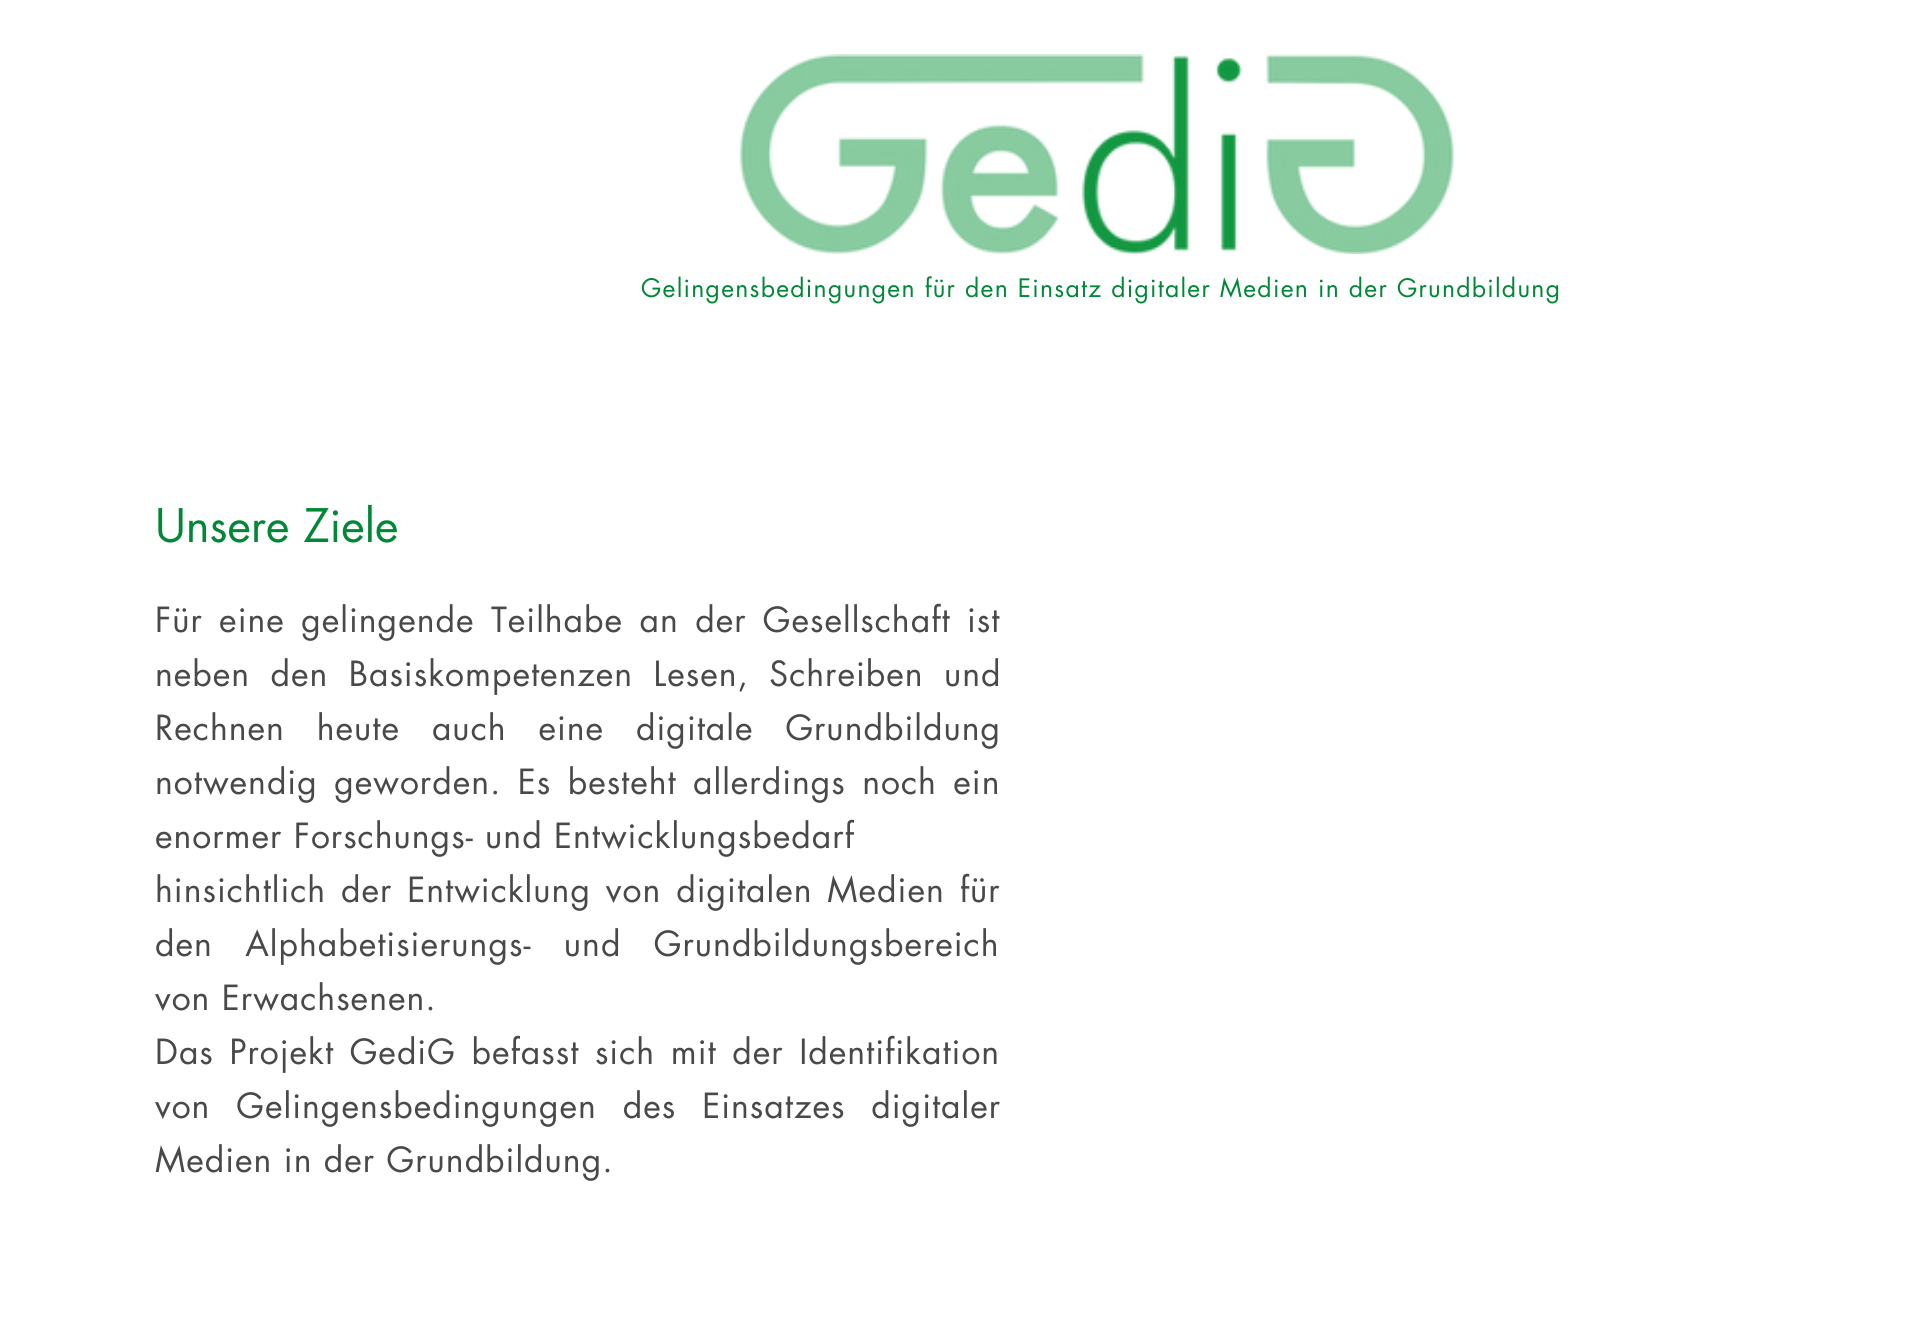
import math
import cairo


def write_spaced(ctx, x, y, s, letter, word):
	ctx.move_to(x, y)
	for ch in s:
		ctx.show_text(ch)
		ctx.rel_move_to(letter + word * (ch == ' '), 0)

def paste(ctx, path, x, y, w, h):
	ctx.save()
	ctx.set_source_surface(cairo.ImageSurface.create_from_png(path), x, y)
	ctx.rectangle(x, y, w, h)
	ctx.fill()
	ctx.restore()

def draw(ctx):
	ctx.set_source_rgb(1, 1, 1)
	ctx.paint()
	paste(ctx, 'media/1.png', 739, 54, 715, 200)
	ctx.select_font_face('futura')
	ctx.set_font_size(24.75)
	ctx.set_source_rgb(0, 0.533, 0.216)
	write_spaced(ctx, 641, 297, 'Gelingensbedingungen für den Einsatz digitaler Medien in der Grundbildung', 1.25, 0)
	ctx.set_font_size(45)
	ctx.move_to(155, 542)
	ctx.show_text('Unsere Ziele')
	ctx.set_font_size(33.75)
	ctx.set_source_rgb(0.29, 0.282, 0.282)
	write_spaced(ctx, 155, 632, 'Für eine gelingende Teilhabe an der Gesellschaft ist', 1, 5)
	write_spaced(ctx, 155, 686, 'neben den Basiskompetenzen Lesen, Schreiben und', 1, 9)
	write_spaced(ctx, 155, 740, 'Rechnen heute auch eine digitale Grundbildung', 1, 20.5)
	write_spaced(ctx, 155, 794, 'notwendig geworden. Es besteht allerdings noch ein', 1, 5)
	write_spaced(ctx, 155, 848, 'enormer Forschungs- und Entwicklungsbedarf', 1, 0)
	write_spaced(ctx, 155, 902, 'hinsichtlich der Entwicklung von digitalen Medien für', 1, 3.5)
	write_spaced(ctx, 155, 956, 'den Alphabetisierungs- und Grundbildungsbereich', 1, 21)
	write_spaced(ctx, 155, 1010, 'von Erwachsenen.', 1, 0)
	write_spaced(ctx, 155, 1064, 'Das Projekt GediG befasst sich mit der Identifikation', 1, 4.25)
	write_spaced(ctx, 155, 1118, 'von Gelingensbedingungen des Einsatzes digitaler', 1, 14.5)
	write_spaced(ctx, 155, 1172, 'Medien in der Grundbildung.', 1, 0)


surface = cairo.ImageSurface(cairo.FORMAT_RGB24, 1929, 1331)
ctx = cairo.Context(surface)
options = cairo.FontOptions()
options.set_hint_metrics(cairo.HINT_METRICS_OFF)
options.set_hint_style(cairo.HINT_STYLE_NONE)
ctx.set_font_options(options)
ctx.set_miter_limit(4)
draw(ctx)
surface.write_to_png('image.png')
